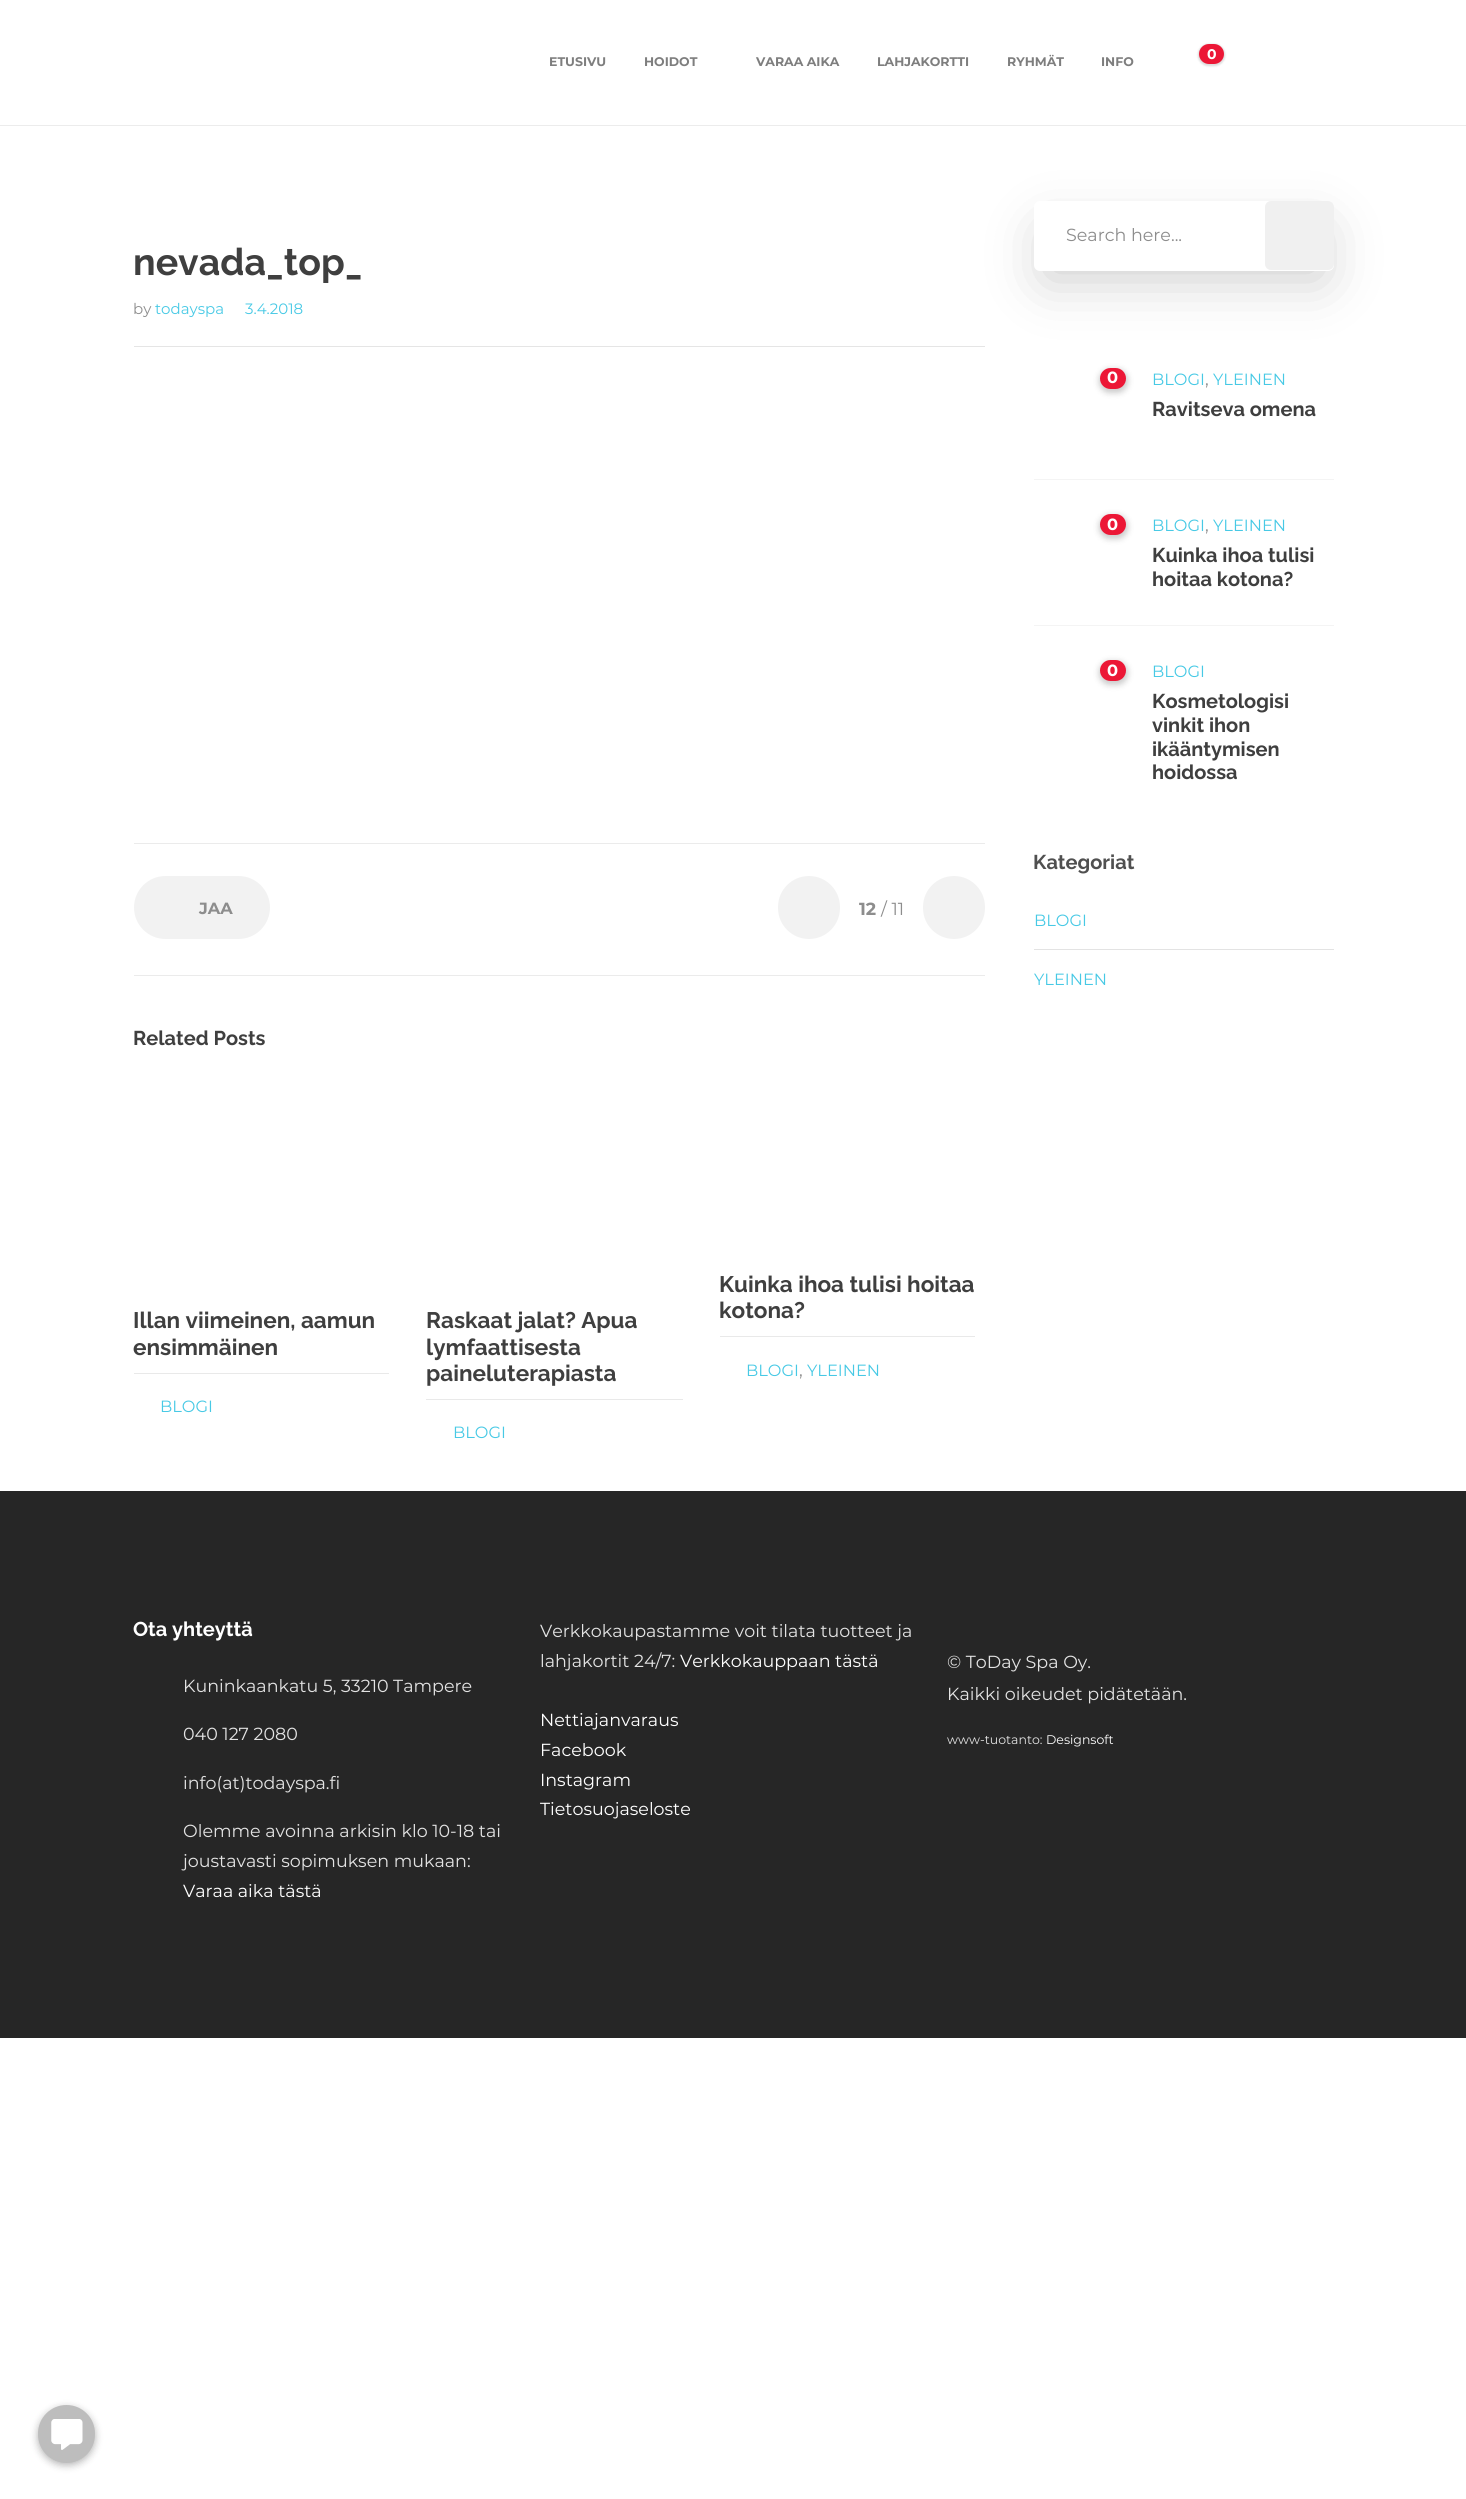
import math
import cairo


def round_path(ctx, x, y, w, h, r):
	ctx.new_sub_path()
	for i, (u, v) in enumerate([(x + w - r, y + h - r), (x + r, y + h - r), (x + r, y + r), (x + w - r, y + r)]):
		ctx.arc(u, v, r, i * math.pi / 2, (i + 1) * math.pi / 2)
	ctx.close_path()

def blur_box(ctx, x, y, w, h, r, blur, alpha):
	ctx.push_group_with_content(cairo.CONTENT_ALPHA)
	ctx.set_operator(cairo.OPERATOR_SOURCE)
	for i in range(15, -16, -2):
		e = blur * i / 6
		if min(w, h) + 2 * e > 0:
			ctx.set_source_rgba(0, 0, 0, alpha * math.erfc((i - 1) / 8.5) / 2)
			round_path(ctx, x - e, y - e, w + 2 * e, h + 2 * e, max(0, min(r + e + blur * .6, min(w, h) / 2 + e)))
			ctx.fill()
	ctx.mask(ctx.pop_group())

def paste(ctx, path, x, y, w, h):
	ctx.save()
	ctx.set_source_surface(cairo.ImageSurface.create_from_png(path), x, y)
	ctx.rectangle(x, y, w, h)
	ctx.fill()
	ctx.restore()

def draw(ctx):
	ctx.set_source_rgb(1, 1, 1)
	ctx.paint()
	ctx.set_source_rgb(0.922, 0.922, 0.922)
	ctx.rectangle(0, 125, 1466, 1)
	ctx.fill()
	ctx.select_font_face('Montserrat', cairo.FONT_SLANT_NORMAL, cairo.FONT_WEIGHT_BOLD)
	ctx.set_font_size(12.5)
	ctx.set_source_rgb(0.494, 0.494, 0.494)
	for x, y, s in [
		(549, 66, 'ETUSIVU'),
		(644, 66, 'HOIDOT'),
		(756, 66, 'VARAA AIKA'),
		(877, 66, 'LAHJAKORTTI'),
		(1007, 66, 'RYHMÄT'),
		(1101, 66, 'INFO'),
	]:
		ctx.move_to(x, y)
		ctx.show_text(s)
	ctx.set_source_rgb(0, 0, 0)
	blur_box(ctx, 1198, 44, 27, 22, 11, 1, 0.15)
	ctx.set_source_rgb(0.925, 0.09, 0.212)
	round_path(ctx, 1199, 44, 25, 20, 10)
	ctx.fill()
	ctx.set_font_size(14)
	ctx.set_source_rgb(1, 1, 1)
	ctx.move_to(1207, 59)
	ctx.show_text('0')
	ctx.select_font_face('Raleway', cairo.FONT_SLANT_NORMAL, cairo.FONT_WEIGHT_BOLD)
	ctx.set_font_size(37.5)
	ctx.set_source_rgb(0.247, 0.247, 0.247)
	ctx.move_to(133, 275)
	ctx.show_text('nevada_top_')
	ctx.set_source_rgb(0.898, 0.898, 0.898)
	ctx.rectangle(134, 346, 851, 1)
	ctx.fill()
	ctx.select_font_face('Montserrat')
	ctx.set_font_size(15)
	ctx.set_source_rgb(0.553, 0.553, 0.553)
	ctx.move_to(133, 314)
	ctx.show_text('by')
	ctx.set_source_rgb(0.278, 0.788, 0.898)
	ctx.move_to(155, 314)
	ctx.show_text('todayspa')
	ctx.move_to(245, 314)
	ctx.show_text('3.4.2018')
	ctx.set_source_rgb(0.918, 0.918, 0.918)
	ctx.rectangle(134, 843, 851, 1)
	ctx.fill()
	ctx.rectangle(134, 975, 851, 1)
	ctx.fill()
	ctx.set_source_rgb(0.949, 0.949, 0.949)
	round_path(ctx, 134, 876, 136, 63, 31.5)
	ctx.fill()
	ctx.select_font_face('Montserrat', cairo.FONT_SLANT_NORMAL, cairo.FONT_WEIGHT_BOLD)
	ctx.set_font_size(16.25)
	ctx.set_source_rgb(0.553, 0.553, 0.553)
	ctx.move_to(199, 914)
	ctx.show_text('JAA')
	ctx.set_source_rgb(0.949, 0.949, 0.949)
	round_path(ctx, 778, 876, 62, 63, 31)
	ctx.fill()
	ctx.set_font_size(17.5)
	ctx.set_source_rgb(0.553, 0.553, 0.553)
	ctx.move_to(859, 915)
	ctx.show_text('12')
	ctx.select_font_face('Montserrat')
	ctx.move_to(881, 915)
	ctx.show_text('/ 11')
	ctx.set_source_rgb(0.949, 0.949, 0.949)
	round_path(ctx, 923, 876, 62, 63, 31)
	ctx.fill()
	ctx.select_font_face('Raleway', cairo.FONT_SLANT_NORMAL, cairo.FONT_WEIGHT_BOLD)
	ctx.set_font_size(20)
	ctx.set_source_rgb(0.247, 0.247, 0.247)
	ctx.move_to(133, 1045)
	ctx.show_text('Related Posts')
	ctx.set_font_size(22.5)
	ctx.move_to(133, 1328)
	ctx.show_text('Illan viimeinen, aamun')
	ctx.move_to(133, 1355)
	ctx.show_text('ensimmäinen')
	ctx.set_source_rgb(0.914, 0.914, 0.914)
	ctx.rectangle(134, 1373, 255, 1)
	ctx.fill()
	ctx.select_font_face('Montserrat')
	ctx.set_font_size(16.25)
	ctx.set_source_rgb(0.278, 0.788, 0.898)
	ctx.move_to(160, 1412)
	ctx.show_text('BLOGI')
	ctx.select_font_face('Raleway', cairo.FONT_SLANT_NORMAL, cairo.FONT_WEIGHT_BOLD)
	ctx.set_font_size(22.5)
	ctx.set_source_rgb(0.247, 0.247, 0.247)
	for x, y, s in [
		(426, 1328, 'Raskaat jalat? Apua'),
		(426, 1355, 'lymfaattisesta'),
		(426, 1381, 'paineluterapiasta'),
	]:
		ctx.move_to(x, y)
		ctx.show_text(s)
	ctx.set_source_rgb(0.914, 0.914, 0.914)
	ctx.rectangle(426, 1399, 257, 1)
	ctx.fill()
	ctx.select_font_face('Montserrat')
	ctx.set_font_size(16.25)
	ctx.set_source_rgb(0.278, 0.788, 0.898)
	ctx.move_to(453, 1438)
	ctx.show_text('BLOGI')
	ctx.select_font_face('Raleway', cairo.FONT_SLANT_NORMAL, cairo.FONT_WEIGHT_BOLD)
	ctx.set_font_size(22.5)
	ctx.set_source_rgb(0.247, 0.247, 0.247)
	ctx.move_to(719, 1292)
	ctx.show_text('Kuinka ihoa tulisi hoitaa')
	ctx.move_to(719, 1318)
	ctx.show_text('kotona?')
	ctx.set_source_rgb(0.914, 0.914, 0.914)
	ctx.rectangle(720, 1336, 255, 1)
	ctx.fill()
	ctx.select_font_face('Montserrat')
	ctx.set_font_size(16.25)
	ctx.set_source_rgb(0.278, 0.788, 0.898)
	ctx.move_to(746, 1376)
	ctx.show_text('BLOGI')
	ctx.move_to(807, 1376)
	ctx.show_text('YLEINEN')
	ctx.set_font_size(17.5)
	ctx.set_source_rgb(0.553, 0.553, 0.553)
	ctx.move_to(799, 1376)
	ctx.show_text(',')
	ctx.set_source_rgb(0, 0, 0)
	blur_box(ctx, 1045, 231, 278, 48, 0, 28, 0.2)
	ctx.set_source_rgb(1, 1, 1)
	round_path(ctx, 1034, 201, 300, 70, 6)
	ctx.fill()
	ctx.set_source_rgb(0.553, 0.553, 0.553)
	ctx.move_to(1066, 241)
	ctx.show_text('Search here...')
	ctx.set_source_rgb(0.941, 0.941, 0.941)
	round_path(ctx, 1265, 201, 69, 69, 6)
	ctx.fill()
	ctx.set_source_rgb(0.957, 0.957, 0.957)
	ctx.rectangle(1034, 479, 300, 1)
	ctx.fill()
	ctx.set_source_rgb(0, 0, 0)
	blur_box(ctx, 1099, 369, 29, 24, 12, 3, 0.2)
	ctx.set_source_rgb(0.925, 0.09, 0.212)
	round_path(ctx, 1100, 368, 26, 21, 10.5)
	ctx.fill()
	ctx.select_font_face('Montserrat', cairo.FONT_SLANT_NORMAL, cairo.FONT_WEIGHT_BOLD)
	ctx.set_font_size(16.25)
	ctx.set_source_rgb(1, 1, 1)
	ctx.move_to(1107, 383)
	ctx.show_text('0')
	ctx.select_font_face('Montserrat')
	ctx.set_source_rgb(0.278, 0.788, 0.898)
	ctx.move_to(1152, 385)
	ctx.show_text('BLOGI')
	ctx.move_to(1213, 385)
	ctx.show_text('YLEINEN')
	ctx.set_font_size(17.5)
	ctx.set_source_rgb(0.553, 0.553, 0.553)
	ctx.move_to(1205, 385)
	ctx.show_text(',')
	ctx.select_font_face('Raleway', cairo.FONT_SLANT_NORMAL, cairo.FONT_WEIGHT_BOLD)
	ctx.set_font_size(20)
	ctx.set_source_rgb(0.247, 0.247, 0.247)
	ctx.move_to(1152, 416)
	ctx.show_text('Ravitseva omena')
	ctx.set_source_rgb(0.957, 0.957, 0.957)
	ctx.rectangle(1034, 625, 300, 1)
	ctx.fill()
	ctx.set_source_rgb(0, 0, 0)
	blur_box(ctx, 1099, 515, 29, 24, 12, 3, 0.2)
	ctx.set_source_rgb(0.925, 0.09, 0.212)
	round_path(ctx, 1100, 514, 26, 21, 10.5)
	ctx.fill()
	ctx.select_font_face('Montserrat', cairo.FONT_SLANT_NORMAL, cairo.FONT_WEIGHT_BOLD)
	ctx.set_font_size(16.25)
	ctx.set_source_rgb(1, 1, 1)
	ctx.move_to(1107, 530)
	ctx.show_text('0')
	ctx.select_font_face('Montserrat')
	ctx.set_source_rgb(0.278, 0.788, 0.898)
	ctx.move_to(1152, 531)
	ctx.show_text('BLOGI')
	ctx.move_to(1213, 531)
	ctx.show_text('YLEINEN')
	ctx.set_font_size(17.5)
	ctx.set_source_rgb(0.553, 0.553, 0.553)
	ctx.move_to(1205, 531)
	ctx.show_text(',')
	ctx.select_font_face('Raleway', cairo.FONT_SLANT_NORMAL, cairo.FONT_WEIGHT_BOLD)
	ctx.set_font_size(20)
	ctx.set_source_rgb(0.247, 0.247, 0.247)
	ctx.move_to(1152, 562)
	ctx.show_text('Kuinka ihoa tulisi')
	ctx.move_to(1152, 586)
	ctx.show_text('hoitaa kotona?')
	ctx.set_source_rgb(0, 0, 0)
	blur_box(ctx, 1099, 661, 29, 24, 12, 3, 0.2)
	ctx.set_source_rgb(0.925, 0.09, 0.212)
	round_path(ctx, 1100, 660, 26, 21, 10.5)
	ctx.fill()
	ctx.select_font_face('Montserrat', cairo.FONT_SLANT_NORMAL, cairo.FONT_WEIGHT_BOLD)
	ctx.set_font_size(16.25)
	ctx.set_source_rgb(1, 1, 1)
	ctx.move_to(1107, 676)
	ctx.show_text('0')
	ctx.select_font_face('Montserrat')
	ctx.set_source_rgb(0.278, 0.788, 0.898)
	ctx.move_to(1152, 677)
	ctx.show_text('BLOGI')
	ctx.select_font_face('Raleway', cairo.FONT_SLANT_NORMAL, cairo.FONT_WEIGHT_BOLD)
	ctx.set_font_size(20)
	ctx.set_source_rgb(0.247, 0.247, 0.247)
	for x, y, s in [
		(1152, 708, 'Kosmetologisi'),
		(1152, 732, 'vinkit ihon'),
		(1152, 756, 'ikääntymisen'),
		(1152, 779, 'hoidossa'),
	]:
		ctx.move_to(x, y)
		ctx.show_text(s)
	ctx.set_source_rgb(0.314, 0.314, 0.314)
	ctx.move_to(1033, 869)
	ctx.show_text('Kategoriat')
	ctx.set_source_rgb(0.89, 0.89, 0.89)
	ctx.rectangle(1034, 949, 300, 1)
	ctx.fill()
	ctx.select_font_face('Montserrat')
	ctx.set_font_size(16.25)
	ctx.set_source_rgb(0.278, 0.788, 0.898)
	ctx.move_to(1034, 926)
	ctx.show_text('BLOGI')
	ctx.move_to(1034, 985)
	ctx.show_text('YLEINEN')
	ctx.set_source_rgb(0.149, 0.149, 0.149)
	ctx.rectangle(0, 1491, 1466, 547)
	ctx.fill()
	ctx.select_font_face('Raleway', cairo.FONT_SLANT_NORMAL, cairo.FONT_WEIGHT_BOLD)
	ctx.set_font_size(20)
	ctx.set_source_rgb(1, 1, 1)
	ctx.move_to(133, 1636)
	ctx.show_text('Ota yhteyttä')
	ctx.select_font_face('Montserrat')
	ctx.set_font_size(17.5)
	ctx.set_source_rgb(0.89, 0.89, 0.89)
	for x, y, s in [
		(183, 1692, 'Kuninkaankatu 5, 33210 Tampere'),
		(183, 1740, '040 127 2080'),
		(183, 1789, 'info(at)todayspa.fi'),
		(183, 1837, 'Olemme avoinna arkisin klo 10-18 tai'),
		(183, 1867, 'joustavasti sopimuksen mukaan:'),
	]:
		ctx.move_to(x, y)
		ctx.show_text(s)
	ctx.set_source_rgb(1, 1, 1)
	ctx.move_to(183, 1897)
	ctx.show_text('Varaa aika tästä')
	ctx.set_source_rgb(0.89, 0.89, 0.89)
	ctx.move_to(540, 1637)
	ctx.show_text('Verkkokaupastamme voit tilata tuotteet ja')
	ctx.move_to(540, 1667)
	ctx.show_text('lahjakortit 24/7:')
	ctx.set_source_rgb(1, 1, 1)
	for x, y, s in [
		(680, 1667, 'Verkkokauppaan tästä'),
		(540, 1726, 'Nettiajanvaraus'),
		(540, 1756, 'Facebook'),
		(540, 1786, 'Instagram'),
		(540, 1815, 'Tietosuojaseloste'),
	]:
		ctx.move_to(x, y)
		ctx.show_text(s)
	ctx.set_source_rgb(0.89, 0.89, 0.89)
	ctx.move_to(947, 1668)
	ctx.show_text('© ToDay Spa Oy.')
	ctx.move_to(947, 1700)
	ctx.show_text('Kaikki oikeudet pidätetään.')
	ctx.set_font_size(12.5)
	ctx.move_to(947, 1744)
	ctx.show_text('www-tuotanto:')
	ctx.set_source_rgb(1, 1, 1)
	ctx.move_to(1046, 1744)
	ctx.show_text('Designsoft')
	ctx.set_source_rgb(0, 0, 0)
	blur_box(ctx, 38, 2408, 57, 57, 28.5, 4, 0.3)
	ctx.set_source_rgb(0.741, 0.741, 0.741)
	round_path(ctx, 39.5, 2406.5, 54, 55, 27)
	ctx.fill_preserve()
	ctx.set_line_width(3)
	ctx.stroke()
	paste(ctx, 'media/1.png', 51, 2419, 32, 31)


surface = cairo.ImageSurface(cairo.FORMAT_RGB24, 1466, 2499)
ctx = cairo.Context(surface)
options = cairo.FontOptions()
options.set_hint_metrics(cairo.HINT_METRICS_OFF)
options.set_hint_style(cairo.HINT_STYLE_NONE)
ctx.set_font_options(options)
ctx.set_miter_limit(4)
draw(ctx)
surface.write_to_png('image.png')
